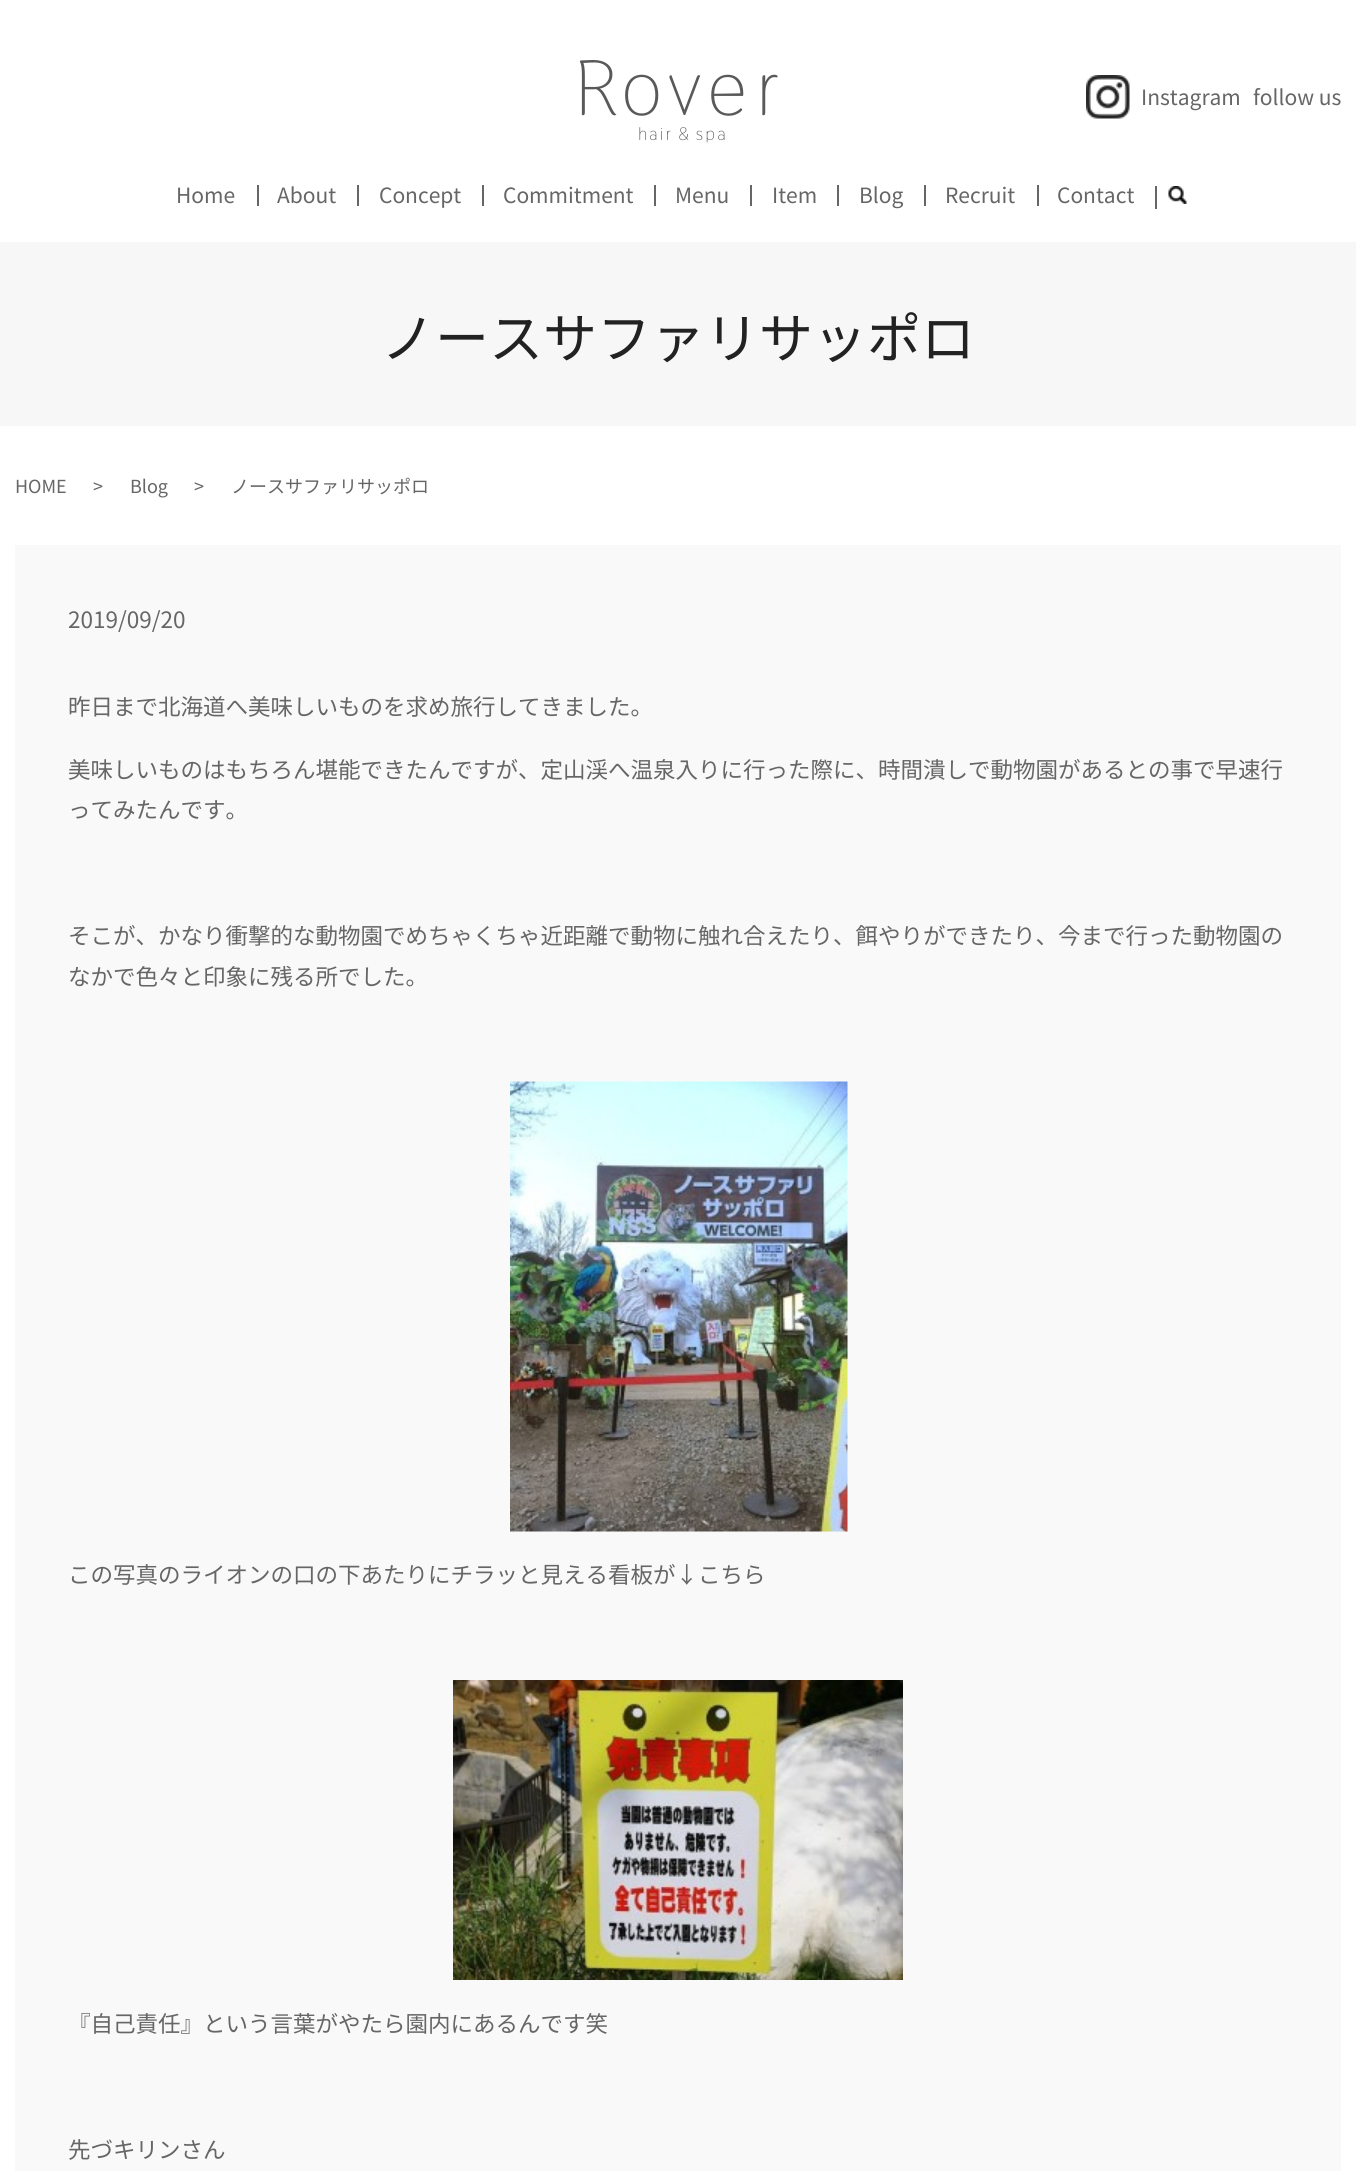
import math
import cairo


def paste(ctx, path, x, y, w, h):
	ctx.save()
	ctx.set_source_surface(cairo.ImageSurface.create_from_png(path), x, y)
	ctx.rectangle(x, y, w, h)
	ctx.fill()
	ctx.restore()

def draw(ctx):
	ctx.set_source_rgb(1, 1, 1)
	ctx.paint()
	paste(ctx, 'media/1.png', 579, 60, 199, 83)
	paste(ctx, 'media/2.png', 1086, 75, 44, 44)
	ctx.select_font_face('Noto Sans JP')
	ctx.set_font_size(21)
	ctx.set_source_rgb(0.4, 0.4, 0.4)
	for x, y, s in [
		(1141, 105, 'Instagram'),
		(1253, 105, 'follow us'),
		(176, 203, 'Home'),
	]:
		ctx.move_to(x, y)
		ctx.show_text(s)
	ctx.rectangle(257, 185, 2, 21)
	ctx.fill()
	ctx.move_to(277, 203)
	ctx.show_text('About')
	ctx.rectangle(357, 185, 2, 21)
	ctx.fill()
	ctx.move_to(379, 203)
	ctx.show_text('Concept')
	ctx.rectangle(482, 185, 2, 21)
	ctx.fill()
	ctx.move_to(503, 203)
	ctx.show_text('Commitment')
	ctx.rectangle(654, 185, 2, 21)
	ctx.fill()
	ctx.move_to(675, 203)
	ctx.show_text('Menu')
	ctx.rectangle(750, 185, 2, 21)
	ctx.fill()
	ctx.move_to(772, 203)
	ctx.show_text('Item')
	ctx.rectangle(837, 185, 2, 21)
	ctx.fill()
	ctx.move_to(859, 203)
	ctx.show_text('Blog')
	ctx.rectangle(924, 185, 2, 21)
	ctx.fill()
	ctx.move_to(945, 203)
	ctx.show_text('Recruit')
	ctx.rectangle(1037, 185, 2, 21)
	ctx.fill()
	ctx.move_to(1057, 203)
	ctx.show_text('Contact')
	paste(ctx, 'media/3.png', 1168, 186, 19, 18)
	ctx.rectangle(1155, 186, 2, 23)
	ctx.fill()
	ctx.set_source_rgb(0.965, 0.965, 0.965)
	ctx.rectangle(0, 242, 1356, 184)
	ctx.fill()
	ctx.set_font_size(54)
	ctx.set_source_rgb(0.133, 0.133, 0.133)
	ctx.move_to(381, 358)
	ctx.show_text('ノースサファリサッポロ')
	ctx.set_font_size(18)
	ctx.set_source_rgb(0.4, 0.4, 0.4)
	for x, y, s in [
		(15, 493, 'HOME'),
		(93, 493, '>'),
		(130, 493, 'Blog'),
		(194, 493, '>'),
		(231, 493, 'ノースサファリサッポロ'),
	]:
		ctx.move_to(x, y)
		ctx.show_text(s)
	ctx.set_source_rgb(0.973, 0.973, 0.973)
	ctx.rectangle(15, 545, 1326, 1626)
	ctx.fill()
	ctx.set_font_size(22.5)
	ctx.set_source_rgb(0.4, 0.4, 0.4)
	for x, y, s in [
		(68, 628, '2019/09/20'),
		(68, 715, '昨日まで北海道へ美味しいものを求め旅行してきました。'),
		(68, 778, '美味しいものはもちろん堪能できたんですが、定山渓へ温泉入りに行った際に、時間潰しで動物園があるとの事で早速行'),
		(68, 818, 'ってみたんです。'),
		(68, 944, 'そこが、かなり衝撃的な動物園でめちゃくちゃ近距離で動物に触れ合えたり、餌やりができたり、今まで行った動物園の'),
		(68, 985, 'なかで色々と印象に残る所でした。'),
	]:
		ctx.move_to(x, y)
		ctx.show_text(s)
	paste(ctx, 'media/4.png', 510, 1081, 338, 451)
	ctx.move_to(68, 1583)
	ctx.show_text('この写真のライオンの口の下あたりにチラッと見える看板が↓こちら')
	paste(ctx, 'media/5.png', 453, 1680, 450, 300)
	ctx.move_to(68, 2032)
	ctx.show_text('『自己責任』という言葉がやたら園内にあるんです笑')
	ctx.move_to(68, 2158)
	ctx.show_text('先づキリンさん')


surface = cairo.ImageSurface(cairo.FORMAT_RGB24, 1356, 2171)
ctx = cairo.Context(surface)
options = cairo.FontOptions()
options.set_hint_metrics(cairo.HINT_METRICS_OFF)
options.set_hint_style(cairo.HINT_STYLE_NONE)
ctx.set_font_options(options)
ctx.set_miter_limit(4)
draw(ctx)
surface.write_to_png('image.png')
